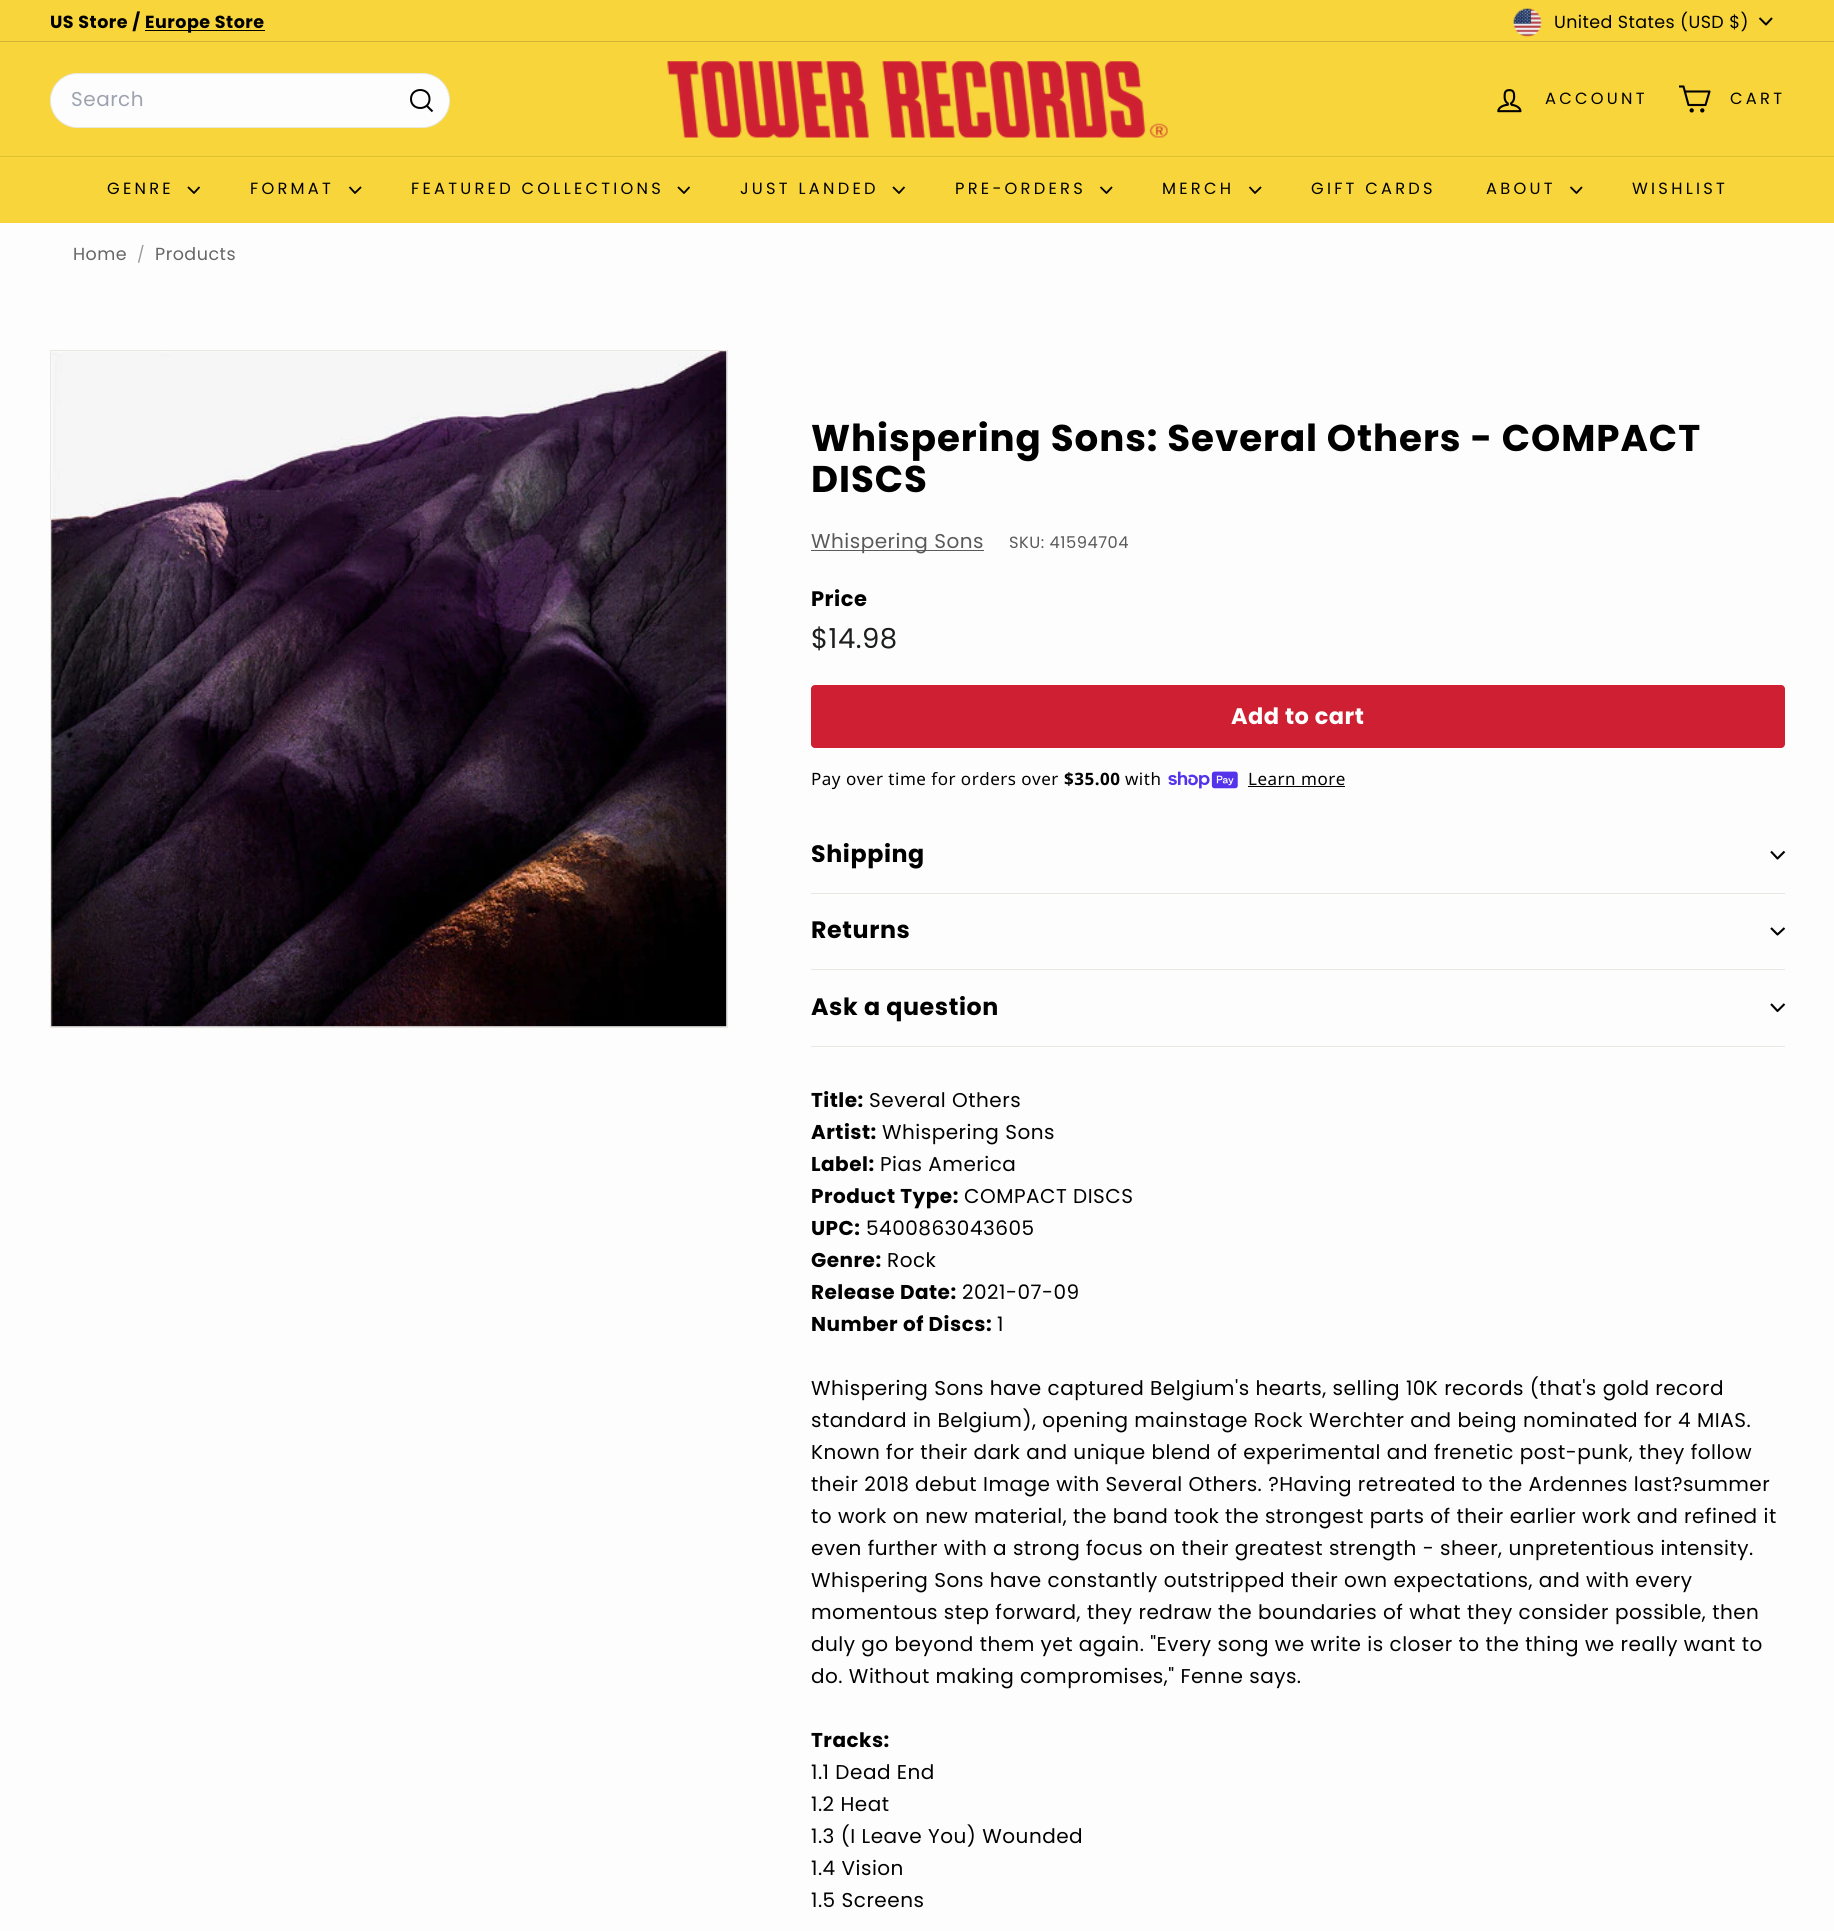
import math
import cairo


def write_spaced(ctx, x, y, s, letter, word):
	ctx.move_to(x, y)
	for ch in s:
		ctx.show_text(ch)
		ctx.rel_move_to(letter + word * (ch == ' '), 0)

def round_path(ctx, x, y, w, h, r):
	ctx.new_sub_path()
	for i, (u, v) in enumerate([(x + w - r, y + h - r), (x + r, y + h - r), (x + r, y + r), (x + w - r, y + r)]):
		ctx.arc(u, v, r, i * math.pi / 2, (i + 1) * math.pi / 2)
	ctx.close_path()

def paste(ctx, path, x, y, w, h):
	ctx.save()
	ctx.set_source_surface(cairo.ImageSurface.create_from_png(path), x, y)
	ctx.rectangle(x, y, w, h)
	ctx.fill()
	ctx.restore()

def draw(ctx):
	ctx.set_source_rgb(0.992, 0.992, 0.992)
	ctx.paint()
	ctx.set_source_rgb(0.965, 0.835, 0.231)
	ctx.rectangle(0, 0, 1834, 156)
	ctx.fill()
	ctx.select_font_face('Poppins', cairo.FONT_SLANT_NORMAL, cairo.FONT_WEIGHT_BOLD)
	ctx.set_font_size(17.5)
	ctx.set_source_rgb(0, 0, 0)
	write_spaced(ctx, 50, 28, 'US Store /', 0.5, 0)
	ctx.rectangle(145, 30, 120, 1)
	ctx.fill()
	write_spaced(ctx, 145, 28, 'Europe Store', 0.5, 0)
	paste(ctx, 'media/1.png', 1513, 8, 29, 29)
	ctx.select_font_face('Poppins')
	write_spaced(ctx, 1554, 28, 'United States (USD $)', 0.4, 0)
	ctx.new_path()
	ctx.move_to(1759.5, 18)
	ctx.line_to(1766, 24.5)
	ctx.line_to(1772, 18)
	ctx.set_line_join(cairo.LINE_JOIN_ROUND)
	ctx.stroke()
	ctx.set_source_rgb(0.82, 0.71, 0.196)
	ctx.rectangle(0, 41, 1834, 1)
	ctx.fill()
	ctx.set_source_rgb(0.992, 0.992, 0.992)
	round_path(ctx, 50.5, 73.5, 399, 54, 27)
	ctx.fill_preserve()
	ctx.set_source_rgb(0.91, 0.91, 0.882)
	ctx.set_line_width(1)
	ctx.set_line_join(cairo.LINE_JOIN_MITER)
	ctx.stroke()
	ctx.set_font_size(20)
	ctx.set_source_rgb(0.612, 0.639, 0.686)
	write_spaced(ctx, 71, 106, 'Search', 0.5, 0)
	ctx.new_path()
	ctx.move_to(429.5, 99)
	ctx.curve_to(429.5, 111, 411, 111, 411, 99)
	ctx.curve_to(411, 87, 429.5, 87, 429.5, 99)
	ctx.move_to(432.5, 111.5)
	ctx.line_to(426.5, 105.5)
	ctx.set_source_rgb(0, 0, 0)
	ctx.set_line_width(2)
	ctx.set_line_join(cairo.LINE_JOIN_ROUND)
	ctx.stroke()
	paste(ctx, 'media/2.png', 667, 61, 501, 77)
	paste(ctx, 'media/3.png', 1497, 89, 25, 24)
	ctx.set_font_size(16.25)
	write_spaced(ctx, 1545, 104, 'ACCOUNT', 3.25, 0)
	ctx.new_path()
	ctx.move_to(1685, 91.5)
	ctx.line_to(1709.5, 91.5)
	ctx.line_to(1705.5, 105)
	ctx.line_to(1688.5, 105)
	ctx.line_to(1683.5, 86.5)
	ctx.line_to(1679, 86.5)
	ctx.set_line_width(2.1)
	ctx.stroke()
	ctx.arc(1691.7, 110.4, 1.1, 0, 2 * math.pi)
	ctx.set_line_join(cairo.LINE_JOIN_MITER)
	ctx.stroke()
	ctx.arc(1702.3, 110.4, 1.1, 0, 2 * math.pi)
	ctx.stroke()
	write_spaced(ctx, 1730, 104, 'CART', 3.25, 0)
	ctx.set_source_rgb(0.965, 0.835, 0.231)
	ctx.rectangle(0, 157, 1834, 66)
	ctx.fill()
	ctx.set_source_rgb(0.867, 0.753, 0.208)
	ctx.rectangle(0, 156, 1834, 1)
	ctx.fill()
	ctx.set_source_rgb(0, 0, 0)
	write_spaced(ctx, 107, 194, 'GENRE', 3.25, 0)
	ctx.new_path()
	ctx.move_to(188, 187)
	ctx.line_to(194, 193)
	ctx.line_to(199.5, 187)
	ctx.set_line_width(1.8)
	ctx.set_line_join(cairo.LINE_JOIN_ROUND)
	ctx.stroke()
	write_spaced(ctx, 250, 194, 'FORMAT', 3.25, 0)
	ctx.new_path()
	ctx.move_to(349.5, 187)
	ctx.line_to(355, 193)
	ctx.line_to(361, 187)
	ctx.stroke()
	write_spaced(ctx, 411, 194, 'FEATURED COLLECTIONS', 3.25, 0)
	ctx.new_path()
	ctx.move_to(678, 187)
	ctx.line_to(684, 193)
	ctx.line_to(689.5, 187)
	ctx.stroke()
	write_spaced(ctx, 740, 194, 'JUST LANDED', 3.25, 0)
	ctx.new_path()
	ctx.move_to(893, 187)
	ctx.line_to(899, 193)
	ctx.line_to(904.5, 187)
	ctx.stroke()
	write_spaced(ctx, 955, 194, 'PRE-ORDERS', 3.25, 0)
	ctx.new_path()
	ctx.move_to(1100.5, 187)
	ctx.line_to(1106.5, 193)
	ctx.line_to(1112, 187)
	ctx.stroke()
	write_spaced(ctx, 1162, 194, 'MERCH', 3.25, 0)
	ctx.new_path()
	ctx.move_to(1249.5, 187)
	ctx.line_to(1255, 193)
	ctx.line_to(1261, 187)
	ctx.stroke()
	write_spaced(ctx, 1311, 194, 'GIFT CARDS', 3.25, 0)
	write_spaced(ctx, 1486, 194, 'ABOUT', 3.25, 0)
	ctx.new_path()
	ctx.move_to(1570.5, 187)
	ctx.line_to(1576.5, 193)
	ctx.line_to(1582, 187)
	ctx.stroke()
	write_spaced(ctx, 1632, 194, 'WISHLIST', 3.25, 0)
	ctx.set_font_size(17.5)
	ctx.set_source_rgb(0.4, 0.4, 0.4)
	write_spaced(ctx, 73, 260, 'Home', 0.5, 0)
	ctx.set_font_size(16)
	ctx.set_source_rgb(0.6, 0.6, 0.6)
	write_spaced(ctx, 137, 260, '/', 0.5, 0)
	ctx.set_font_size(17.5)
	ctx.set_source_rgb(0.4, 0.4, 0.4)
	write_spaced(ctx, 155, 260, 'Products', 0.5, 0)
	ctx.rectangle(50.5, 350.5, 677, 677)
	ctx.set_source_rgb(0.91, 0.91, 0.882)
	ctx.set_line_width(1)
	ctx.set_line_join(cairo.LINE_JOIN_MITER)
	ctx.stroke()
	paste(ctx, 'media/4.png', 51, 351, 676, 676)
	ctx.select_font_face('Poppins', cairo.FONT_SLANT_NORMAL, cairo.FONT_WEIGHT_BOLD)
	ctx.set_font_size(37.2)
	ctx.set_source_rgb(0, 0, 0)
	write_spaced(ctx, 811, 451, 'Whispering Sons: Several Others - COMPACT', 0.95, 0)
	write_spaced(ctx, 811, 492, 'DISCS', 0.95, 0)
	ctx.set_source_rgb(0.349, 0.349, 0.349)
	ctx.rectangle(811, 550, 173, 1)
	ctx.fill()
	ctx.select_font_face('Poppins')
	ctx.set_font_size(20)
	write_spaced(ctx, 811, 548, 'Whispering Sons', 0.5, 0)
	ctx.set_font_size(16.25)
	write_spaced(ctx, 1009, 548, 'SKU: 41594704', 0.5, 0)
	ctx.select_font_face('Poppins', cairo.FONT_SLANT_NORMAL, cairo.FONT_WEIGHT_BOLD)
	ctx.set_font_size(21)
	ctx.set_source_rgb(0, 0, 0)
	write_spaced(ctx, 811, 606, 'Price', 0.5, 0)
	ctx.select_font_face('Poppins')
	ctx.set_font_size(27.5)
	ctx.set_source_rgb(0.11, 0.114, 0.114)
	write_spaced(ctx, 811, 648, '$14.98', 0.5, 0)
	ctx.set_source_rgb(0.808, 0.125, 0.196)
	round_path(ctx, 811, 685, 974, 63, 4)
	ctx.fill()
	ctx.select_font_face('Poppins', cairo.FONT_SLANT_NORMAL, cairo.FONT_WEIGHT_BOLD)
	ctx.set_font_size(22.5)
	ctx.set_source_rgb(1, 1, 1)
	write_spaced(ctx, 1231, 724, 'Add to cart', 0.5, 0)
	ctx.select_font_face('Noto Sans')
	ctx.set_font_size(17)
	ctx.set_source_rgb(0, 0, 0)
	write_spaced(ctx, 811, 785, 'Pay over time for orders over', 0.5, 0)
	ctx.select_font_face('Noto Sans', cairo.FONT_SLANT_NORMAL, cairo.FONT_WEIGHT_BOLD)
	write_spaced(ctx, 1064, 785, '$35.00', 0.5, 0)
	ctx.select_font_face('Noto Sans')
	write_spaced(ctx, 1125, 785, 'with', 0.5, 0)
	paste(ctx, 'media/5.png', 1168, 771, 70, 18)
	write_spaced(ctx, 1248, 785, 'Learn more', 0.5, 0)
	ctx.rectangle(1248, 786, 97, 1)
	ctx.fill()
	ctx.set_source_rgb(0.91, 0.91, 0.882)
	ctx.rectangle(811, 893, 974, 1)
	ctx.fill()
	ctx.select_font_face('Poppins', cairo.FONT_SLANT_NORMAL, cairo.FONT_WEIGHT_BOLD)
	ctx.set_font_size(23.75)
	ctx.set_source_rgb(0, 0, 0)
	write_spaced(ctx, 811, 862, 'Shipping', 0.6, 0)
	ctx.new_path()
	ctx.move_to(1771, 851.5)
	ctx.line_to(1777.5, 858.5)
	ctx.line_to(1784.5, 851.5)
	ctx.set_line_width(2.1)
	ctx.set_line_join(cairo.LINE_JOIN_ROUND)
	ctx.stroke()
	ctx.set_source_rgb(0.91, 0.91, 0.882)
	ctx.rectangle(811, 969, 974, 1)
	ctx.fill()
	ctx.set_source_rgb(0, 0, 0)
	write_spaced(ctx, 811, 938, 'Returns', 0.6, 0)
	ctx.new_path()
	ctx.move_to(1771, 928)
	ctx.line_to(1777.5, 934.5)
	ctx.line_to(1784.5, 928)
	ctx.stroke()
	ctx.set_source_rgb(0.91, 0.91, 0.882)
	ctx.rectangle(811, 1046, 974, 1)
	ctx.fill()
	ctx.set_source_rgb(0, 0, 0)
	write_spaced(ctx, 811, 1015, 'Ask a question', 0.6, 0)
	ctx.new_path()
	ctx.move_to(1771, 1004)
	ctx.line_to(1777.5, 1011)
	ctx.line_to(1784.5, 1004)
	ctx.stroke()
	ctx.set_font_size(20)
	write_spaced(ctx, 811, 1107, 'Title:', 0.5, 0)
	ctx.select_font_face('Poppins')
	write_spaced(ctx, 869, 1107, 'Several Others', 0.5, 0)
	ctx.select_font_face('Poppins', cairo.FONT_SLANT_NORMAL, cairo.FONT_WEIGHT_BOLD)
	write_spaced(ctx, 811, 1139, 'Artist:', 0.5, 0)
	ctx.select_font_face('Poppins')
	write_spaced(ctx, 882, 1139, 'Whispering Sons', 0.5, 0)
	ctx.select_font_face('Poppins', cairo.FONT_SLANT_NORMAL, cairo.FONT_WEIGHT_BOLD)
	write_spaced(ctx, 811, 1171, 'Label:', 0.5, 0)
	ctx.select_font_face('Poppins')
	write_spaced(ctx, 880, 1171, 'Pias America', 0.5, 0)
	ctx.select_font_face('Poppins', cairo.FONT_SLANT_NORMAL, cairo.FONT_WEIGHT_BOLD)
	write_spaced(ctx, 811, 1203, 'Product Type:', 0.5, 0)
	ctx.select_font_face('Poppins')
	write_spaced(ctx, 964, 1203, 'COMPACT DISCS', 0.5, 0)
	ctx.select_font_face('Poppins', cairo.FONT_SLANT_NORMAL, cairo.FONT_WEIGHT_BOLD)
	write_spaced(ctx, 811, 1235, 'UPC:', 0.5, 0)
	ctx.select_font_face('Poppins')
	write_spaced(ctx, 866, 1235, '5400863043605', 0.5, 0)
	ctx.select_font_face('Poppins', cairo.FONT_SLANT_NORMAL, cairo.FONT_WEIGHT_BOLD)
	write_spaced(ctx, 811, 1267, 'Genre:', 0.5, 0)
	ctx.select_font_face('Poppins')
	write_spaced(ctx, 887, 1267, 'Rock', 0.5, 0)
	ctx.select_font_face('Poppins', cairo.FONT_SLANT_NORMAL, cairo.FONT_WEIGHT_BOLD)
	write_spaced(ctx, 811, 1299, 'Release Date:', 0.5, 0)
	ctx.select_font_face('Poppins')
	write_spaced(ctx, 962, 1299, '2021-07-09', 0.5, 0)
	ctx.select_font_face('Poppins', cairo.FONT_SLANT_NORMAL, cairo.FONT_WEIGHT_BOLD)
	write_spaced(ctx, 811, 1331, 'Number of Discs:', 0.5, 0)
	ctx.select_font_face('Poppins')
	for x, y, s in [
		(997, 1331, '1'),
		(811, 1395, 'Whispering Sons have captured Belgium\'s hearts, selling 10K records (that\'s gold record'),
		(811, 1427, 'standard in Belgium), opening mainstage Rock Werchter and being nominated for 4 MIAS.'),
		(811, 1459, 'Known for their dark and unique blend of experimental and frenetic post-punk, they follow'),
		(811, 1491, 'their 2018 debut Image with Several Others. ?Having retreated to the Ardennes last?summer'),
		(811, 1523, 'to work on new material, the band took the strongest parts of their earlier work and refined it'),
		(811, 1555, 'even further with a strong focus on their greatest strength - sheer, unpretentious intensity.'),
		(811, 1587, 'Whispering Sons have constantly outstripped their own expectations, and with every'),
		(811, 1619, 'momentous step forward, they redraw the boundaries of what they consider possible, then'),
		(811, 1651, 'duly go beyond them yet again. "Every song we write is closer to the thing we really want to'),
		(811, 1683, 'do. Without making compromises," Fenne says.'),
	]:
		write_spaced(ctx, x, y, s, 0.5, 0)
	ctx.select_font_face('Poppins', cairo.FONT_SLANT_NORMAL, cairo.FONT_WEIGHT_BOLD)
	write_spaced(ctx, 811, 1747, 'Tracks:', 0.5, 0)
	ctx.select_font_face('Poppins')
	for x, y, s in [
		(811, 1779, '1.1 Dead End'),
		(811, 1811, '1.2 Heat'),
		(811, 1843, '1.3 (I Leave You) Wounded'),
		(811, 1875, '1.4 Vision'),
		(811, 1907, '1.5 Screens'),
	]:
		write_spaced(ctx, x, y, s, 0.5, 0)


surface = cairo.ImageSurface(cairo.FORMAT_RGB24, 1834, 1931)
ctx = cairo.Context(surface)
options = cairo.FontOptions()
options.set_hint_metrics(cairo.HINT_METRICS_OFF)
options.set_hint_style(cairo.HINT_STYLE_NONE)
ctx.set_font_options(options)
ctx.set_miter_limit(4)
draw(ctx)
surface.write_to_png('image.png')
